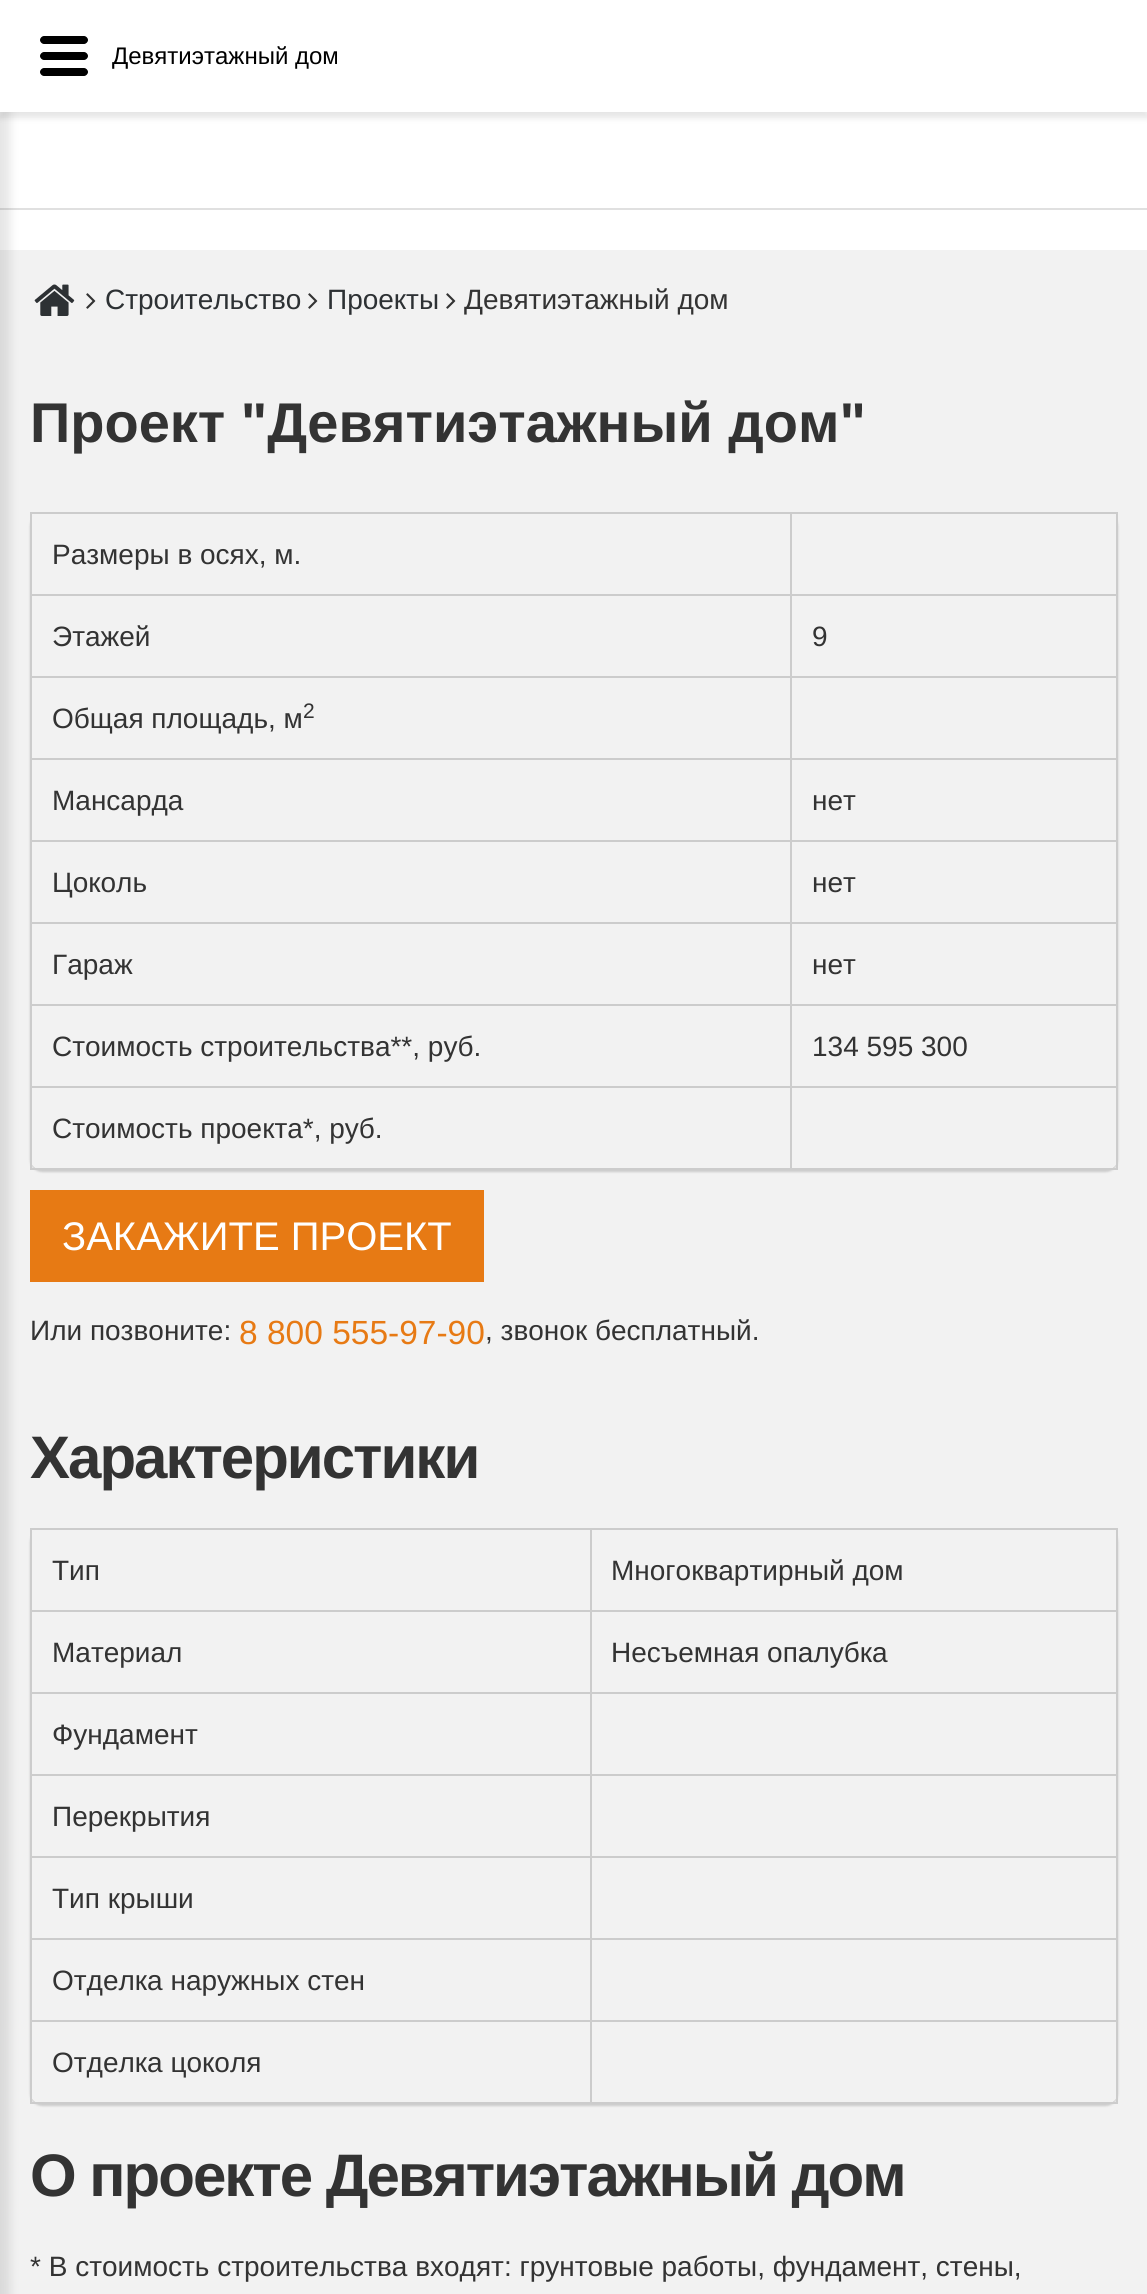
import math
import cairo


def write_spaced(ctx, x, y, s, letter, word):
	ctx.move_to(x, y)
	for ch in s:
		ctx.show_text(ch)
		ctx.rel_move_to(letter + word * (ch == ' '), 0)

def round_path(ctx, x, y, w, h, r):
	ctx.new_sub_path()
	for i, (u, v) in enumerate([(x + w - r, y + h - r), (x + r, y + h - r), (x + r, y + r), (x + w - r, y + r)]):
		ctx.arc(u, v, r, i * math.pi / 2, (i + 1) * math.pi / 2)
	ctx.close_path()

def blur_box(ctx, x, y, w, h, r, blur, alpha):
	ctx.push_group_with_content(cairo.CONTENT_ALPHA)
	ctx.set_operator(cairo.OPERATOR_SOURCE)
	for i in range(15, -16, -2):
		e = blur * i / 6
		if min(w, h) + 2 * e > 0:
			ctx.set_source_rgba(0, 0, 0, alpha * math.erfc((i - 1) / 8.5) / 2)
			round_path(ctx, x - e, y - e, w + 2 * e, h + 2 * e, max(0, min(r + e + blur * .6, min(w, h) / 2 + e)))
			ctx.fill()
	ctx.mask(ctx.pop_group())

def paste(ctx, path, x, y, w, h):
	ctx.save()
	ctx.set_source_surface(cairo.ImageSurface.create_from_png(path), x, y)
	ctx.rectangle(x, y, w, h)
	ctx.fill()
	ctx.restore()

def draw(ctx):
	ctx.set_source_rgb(1, 1, 1)
	ctx.paint()
	ctx.set_source_rgb(0.878, 0.878, 0.878)
	ctx.rectangle(0, 208, 1147, 2)
	ctx.fill()
	ctx.set_source_rgb(0.949, 0.949, 0.949)
	ctx.rectangle(0, 250, 1147, 2044)
	ctx.fill()
	ctx.set_source_rgb(0, 0, 0)
	blur_box(ctx, -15, -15, 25, 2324, 0, 5, 0.1)
	blur_box(ctx, 0, 6, 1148, 112, 0, 3, 0.1)
	ctx.set_source_rgb(1, 1, 1)
	ctx.rectangle(0, 0, 1147, 112)
	ctx.fill()
	ctx.set_source_rgb(0, 0, 0)
	ctx.new_path()
	ctx.move_to(84, 60)
	ctx.line_to(44, 60)
	ctx.curve_to(42, 60, 40, 58, 40, 56)
	ctx.curve_to(40, 54, 42, 52, 44, 52)
	ctx.line_to(84, 52)
	ctx.curve_to(86, 52, 88, 54, 88, 56)
	ctx.curve_to(88, 58, 86, 60, 84, 60)
	ctx.close_path()
	ctx.move_to(84, 76)
	ctx.line_to(44, 76)
	ctx.curve_to(42, 76, 40, 74, 40, 72)
	ctx.curve_to(40, 70, 42, 68, 44, 68)
	ctx.line_to(84, 68)
	ctx.curve_to(86, 68, 88, 70, 88, 72)
	ctx.curve_to(88, 74, 86, 76, 84, 76)
	ctx.close_path()
	ctx.move_to(84, 44)
	ctx.line_to(44, 44)
	ctx.curve_to(42, 44, 40, 42, 40, 40)
	ctx.curve_to(40, 38, 42, 36, 44, 36)
	ctx.line_to(84, 36)
	ctx.curve_to(86, 36, 88, 38, 88, 40)
	ctx.curve_to(88, 42, 86, 44, 84, 44)
	ctx.close_path()
	ctx.fill()
	ctx.select_font_face('Liberation Sans')
	ctx.set_font_size(24)
	ctx.move_to(112, 64)
	ctx.show_text('Девятиэтажный дом')
	paste(ctx, 'media/1.png', 34, 284, 41, 32)
	paste(ctx, 'media/2.png', 86, 293, 10, 16)
	ctx.set_font_size(28)
	ctx.set_source_rgb(0.176, 0.192, 0.204)
	ctx.move_to(105, 309)
	ctx.show_text('Строительство')
	paste(ctx, 'media/2.png', 308, 293, 10, 16)
	ctx.move_to(327, 309)
	ctx.show_text('Проекты')
	paste(ctx, 'media/2.png', 446, 293, 10, 16)
	ctx.set_source_rgb(0.2, 0.2, 0.2)
	ctx.move_to(464, 309)
	ctx.show_text('Девятиэтажный дом')
	ctx.select_font_face('Liberation Sans', cairo.FONT_SLANT_NORMAL, cairo.FONT_WEIGHT_BOLD)
	ctx.set_font_size(56)
	ctx.move_to(30, 442)
	ctx.show_text('Проект "Девятиэтажный дом"')
	ctx.save()
	ctx.set_fill_rule(cairo.FILL_RULE_EVEN_ODD)
	ctx.new_path()
	ctx.move_to(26, 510)
	ctx.line_to(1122, 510)
	ctx.line_to(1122, 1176)
	ctx.line_to(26, 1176)
	ctx.close_path()
	ctx.move_to(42, 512)
	ctx.line_to(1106, 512)
	ctx.curve_to(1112.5, 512, 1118, 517.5, 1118, 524)
	ctx.line_to(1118, 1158)
	ctx.curve_to(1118, 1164.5, 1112.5, 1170, 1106, 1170)
	ctx.line_to(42, 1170)
	ctx.curve_to(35.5, 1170, 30, 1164.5, 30, 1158)
	ctx.line_to(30, 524)
	ctx.curve_to(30, 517.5, 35.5, 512, 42, 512)
	ctx.close_path()
	ctx.clip()
	ctx.set_source_rgb(0.8, 0.8, 0.8)
	blur_box(ctx, 30, 514, 1088, 658, 12, 1, 1)
	ctx.restore()
	ctx.set_source_rgb(0.8, 0.8, 0.8)
	ctx.rectangle(30, 512, 1088, 2)
	ctx.rectangle(1116, 512, 2, 658)
	ctx.rectangle(30, 1168, 1088, 2)
	ctx.rectangle(30, 512, 2, 658)
	ctx.fill()
	ctx.select_font_face('Liberation Sans')
	ctx.set_font_size(28)
	ctx.set_source_rgb(0.2, 0.2, 0.2)
	ctx.move_to(52, 564)
	ctx.show_text('Размеры в осях, м.')
	ctx.set_source_rgb(0.8, 0.8, 0.8)
	ctx.rectangle(790, 594, 328, 2)
	ctx.rectangle(790, 676, 328, 2)
	ctx.rectangle(790, 758, 328, 2)
	ctx.rectangle(790, 840, 328, 2)
	ctx.rectangle(790, 922, 328, 2)
	ctx.rectangle(790, 1004, 328, 2)
	ctx.rectangle(790, 1086, 328, 2)
	ctx.rectangle(790, 1086, 2, 84)
	ctx.rectangle(30, 1086, 762, 2)
	ctx.rectangle(790, 1004, 2, 84)
	ctx.rectangle(30, 1004, 762, 2)
	ctx.rectangle(790, 922, 2, 84)
	ctx.rectangle(30, 922, 762, 2)
	ctx.rectangle(790, 840, 2, 84)
	ctx.rectangle(30, 840, 762, 2)
	ctx.rectangle(790, 758, 2, 84)
	ctx.rectangle(30, 758, 762, 2)
	ctx.rectangle(790, 676, 2, 84)
	ctx.rectangle(30, 676, 762, 2)
	ctx.rectangle(790, 594, 2, 84)
	ctx.rectangle(30, 594, 762, 2)
	ctx.rectangle(790, 512, 2, 84)
	ctx.fill()
	ctx.set_source_rgb(0.2, 0.2, 0.2)
	for x, y, s in [
		(52, 646, 'Этажей'),
		(812, 646, '9'),
		(52, 728, 'Общая площадь, м'),
	]:
		ctx.move_to(x, y)
		ctx.show_text(s)
	ctx.set_font_size(21)
	ctx.move_to(303, 718)
	ctx.show_text('2')
	ctx.set_font_size(28)
	for x, y, s in [
		(52, 810, 'Мансарда'),
		(812, 810, 'нет'),
		(52, 892, 'Цоколь'),
		(812, 892, 'нет'),
		(52, 974, 'Гараж'),
		(812, 974, 'нет'),
		(52, 1056, 'Стоимость строительства**, руб.'),
		(812, 1056, '134 595 300'),
		(52, 1138, 'Стоимость проекта*, руб.'),
	]:
		ctx.move_to(x, y)
		ctx.show_text(s)
	ctx.set_source_rgb(0.906, 0.478, 0.082)
	ctx.rectangle(30, 1190, 454, 92)
	ctx.fill()
	ctx.set_font_size(40)
	ctx.set_source_rgb(1, 1, 1)
	ctx.move_to(62, 1250)
	ctx.show_text('ЗАКАЖИТЕ ПРОЕКТ')
	ctx.set_font_size(28)
	ctx.set_source_rgb(0.2, 0.2, 0.2)
	ctx.move_to(30, 1340)
	ctx.show_text('Или позвоните:')
	ctx.set_font_size(33.5)
	ctx.set_source_rgb(0.906, 0.478, 0.082)
	ctx.move_to(239, 1344)
	ctx.show_text('8 800 555-97-90')
	ctx.set_font_size(28)
	ctx.set_source_rgb(0.2, 0.2, 0.2)
	ctx.move_to(485, 1340)
	ctx.show_text(', звонок бесплатный.')
	ctx.select_font_face('Liberation Sans', cairo.FONT_SLANT_NORMAL, cairo.FONT_WEIGHT_BOLD)
	ctx.set_font_size(60)
	write_spaced(ctx, 30, 1478, 'Характеристики', -2, 0)
	ctx.save()
	ctx.set_fill_rule(cairo.FILL_RULE_EVEN_ODD)
	ctx.new_path()
	ctx.move_to(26, 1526)
	ctx.line_to(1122, 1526)
	ctx.line_to(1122, 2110)
	ctx.line_to(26, 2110)
	ctx.close_path()
	ctx.move_to(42, 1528)
	ctx.line_to(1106, 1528)
	ctx.curve_to(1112.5, 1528, 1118, 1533.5, 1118, 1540)
	ctx.line_to(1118, 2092)
	ctx.curve_to(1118, 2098.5, 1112.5, 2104, 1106, 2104)
	ctx.line_to(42, 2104)
	ctx.curve_to(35.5, 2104, 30, 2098.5, 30, 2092)
	ctx.line_to(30, 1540)
	ctx.curve_to(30, 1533.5, 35.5, 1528, 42, 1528)
	ctx.close_path()
	ctx.clip()
	ctx.set_source_rgb(0.8, 0.8, 0.8)
	blur_box(ctx, 30, 1530, 1088, 576, 12, 1, 1)
	ctx.restore()
	ctx.set_source_rgb(0.8, 0.8, 0.8)
	ctx.rectangle(30, 1528, 1088, 2)
	ctx.rectangle(1116, 1528, 2, 576)
	ctx.rectangle(30, 2102, 1088, 2)
	ctx.rectangle(30, 1528, 2, 576)
	ctx.fill()
	ctx.select_font_face('Liberation Sans')
	ctx.set_font_size(28)
	ctx.set_source_rgb(0.2, 0.2, 0.2)
	ctx.move_to(52, 1580)
	ctx.show_text('Тип')
	ctx.set_source_rgb(0.8, 0.8, 0.8)
	ctx.rectangle(590, 1610, 528, 2)
	ctx.rectangle(590, 1692, 528, 2)
	ctx.rectangle(590, 1774, 528, 2)
	ctx.rectangle(590, 1856, 528, 2)
	ctx.rectangle(590, 1938, 528, 2)
	ctx.rectangle(590, 2020, 528, 2)
	ctx.rectangle(590, 2020, 2, 84)
	ctx.rectangle(30, 2020, 562, 2)
	ctx.rectangle(590, 1938, 2, 84)
	ctx.rectangle(30, 1938, 562, 2)
	ctx.rectangle(590, 1856, 2, 84)
	ctx.rectangle(30, 1856, 562, 2)
	ctx.rectangle(590, 1774, 2, 84)
	ctx.rectangle(30, 1774, 562, 2)
	ctx.rectangle(590, 1692, 2, 84)
	ctx.rectangle(30, 1692, 562, 2)
	ctx.rectangle(590, 1610, 2, 84)
	ctx.rectangle(30, 1610, 562, 2)
	ctx.rectangle(590, 1528, 2, 84)
	ctx.fill()
	ctx.set_source_rgb(0.2, 0.2, 0.2)
	for x, y, s in [
		(611, 1580, 'Многоквартирный дом'),
		(52, 1662, 'Материал'),
		(611, 1662, 'Несъемная опалубка'),
		(52, 1744, 'Фундамент'),
		(52, 1826, 'Перекрытия'),
		(52, 1908, 'Тип крыши'),
		(52, 1990, 'Отделка наружных стен'),
		(52, 2072, 'Отделка цоколя'),
	]:
		ctx.move_to(x, y)
		ctx.show_text(s)
	ctx.select_font_face('Liberation Sans', cairo.FONT_SLANT_NORMAL, cairo.FONT_WEIGHT_BOLD)
	ctx.set_font_size(60)
	write_spaced(ctx, 30, 2196, 'О проекте Девятиэтажный дом', -2, 0)
	ctx.select_font_face('Liberation Sans')
	ctx.set_font_size(28)
	ctx.move_to(30, 2276)
	ctx.show_text('* В стоимость строительства входят: грунтовые работы, фундамент, стены,')


surface = cairo.ImageSurface(cairo.FORMAT_RGB24, 1147, 2294)
ctx = cairo.Context(surface)
options = cairo.FontOptions()
options.set_hint_metrics(cairo.HINT_METRICS_OFF)
options.set_hint_style(cairo.HINT_STYLE_NONE)
ctx.set_font_options(options)
ctx.set_miter_limit(4)
draw(ctx)
surface.write_to_png('image.png')
